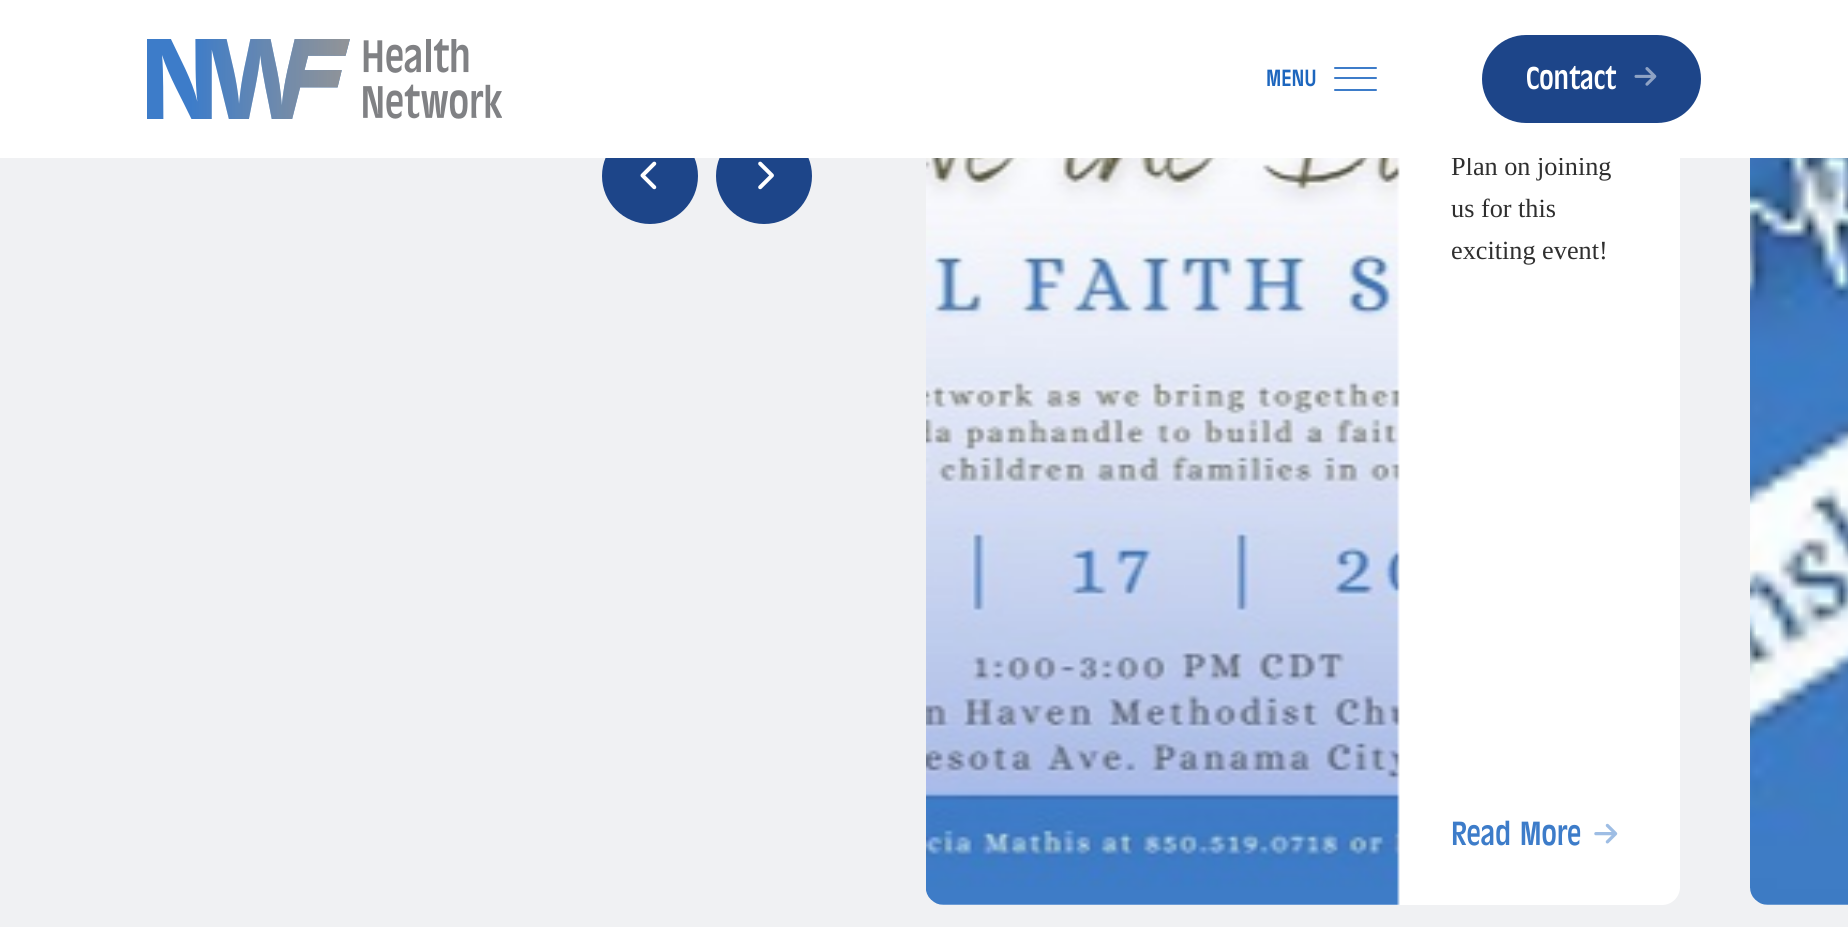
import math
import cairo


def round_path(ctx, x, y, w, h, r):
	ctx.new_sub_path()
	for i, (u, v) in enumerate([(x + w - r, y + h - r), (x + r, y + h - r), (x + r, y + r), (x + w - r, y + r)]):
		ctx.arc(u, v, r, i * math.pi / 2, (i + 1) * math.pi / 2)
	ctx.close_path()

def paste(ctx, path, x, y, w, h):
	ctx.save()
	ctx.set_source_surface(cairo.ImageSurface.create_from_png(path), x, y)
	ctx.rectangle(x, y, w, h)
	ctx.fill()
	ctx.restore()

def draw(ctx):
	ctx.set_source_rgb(0.941, 0.945, 0.953)
	ctx.paint()
	ctx.set_source_rgb(0.114, 0.271, 0.537)
	ctx.arc(650, 176, 48, 0, 2 * math.pi)
	ctx.fill()
	ctx.arc(764, 176, 48, 0, 2 * math.pi)
	ctx.fill()
	ctx.set_source_rgb(1, 1, 1)
	round_path(ctx, 926, -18, 754, 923, 18)
	ctx.fill()
	ctx.select_font_face('Liberation Serif')
	ctx.set_font_size(26.25)
	ctx.set_source_rgb(0.184, 0.184, 0.184)
	ctx.move_to(1451, 175)
	ctx.show_text('Plan on joining')
	ctx.set_source_rgb(1, 1, 1)
	ctx.rectangle(0, 0, 1750, 158)
	ctx.fill()
	paste(ctx, 'media/1.png', 147, 39, 355, 80)
	ctx.set_source_rgb(0.239, 0.486, 0.788)
	round_path(ctx, 1334, 67, 43, 2, 1)
	ctx.fill()
	ctx.select_font_face('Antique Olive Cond')
	ctx.set_font_size(24.5)
	ctx.set_source_rgb(0.114, 0.4, 0.745)
	ctx.move_to(1266, 86)
	ctx.show_text('MENU')
	ctx.set_source_rgb(0.239, 0.486, 0.788)
	round_path(ctx, 1334, 77, 43, 2, 1)
	ctx.fill()
	round_path(ctx, 1334, 89, 43, 2, 1)
	ctx.fill()
	ctx.set_source_rgb(0.114, 0.271, 0.537)
	round_path(ctx, 1482, 35, 219, 88, 44)
	ctx.fill()
	ctx.set_font_size(33)
	ctx.set_source_rgb(1, 1, 1)
	ctx.move_to(1526, 89)
	ctx.show_text('Contact')
	paste(ctx, 'media/2.png', 1634, 67, 23, 19)
	paste(ctx, 'media/3.png', 640, 161, 17, 29)
	paste(ctx, 'media/4.png', 758, 161, 16, 29)
	paste(ctx, 'media/5.png', 926, 158, 474, 747)
	ctx.select_font_face('Liberation Serif')
	ctx.set_font_size(26.25)
	ctx.set_source_rgb(0.184, 0.184, 0.184)
	ctx.move_to(1451, 217)
	ctx.show_text('us for this')
	ctx.move_to(1451, 259)
	ctx.show_text('exciting event!')
	ctx.select_font_face('Antique Olive Cond')
	ctx.set_font_size(35)
	ctx.set_source_rgb(0.239, 0.486, 0.788)
	ctx.move_to(1451, 845)
	ctx.show_text('Read More')
	paste(ctx, 'media/6.png', 1594, 823, 24, 21)
	ctx.set_source_rgb(1, 1, 1)
	ctx.new_path()
	ctx.move_to(1768, -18)
	ctx.line_to(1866, -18)
	ctx.line_to(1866, 905)
	ctx.line_to(1768, 905)
	ctx.curve_to(1758, 905, 1750, 897, 1750, 887)
	ctx.line_to(1750, 0)
	ctx.curve_to(1750, -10, 1758, -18, 1768, -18)
	ctx.close_path()
	ctx.fill()
	paste(ctx, 'media/7.png', 1750, 158, 98, 747)


surface = cairo.ImageSurface(cairo.FORMAT_RGB24, 1848, 927)
ctx = cairo.Context(surface)
options = cairo.FontOptions()
options.set_hint_metrics(cairo.HINT_METRICS_OFF)
options.set_hint_style(cairo.HINT_STYLE_NONE)
ctx.set_font_options(options)
ctx.set_miter_limit(4)
draw(ctx)
surface.write_to_png('image.png')
